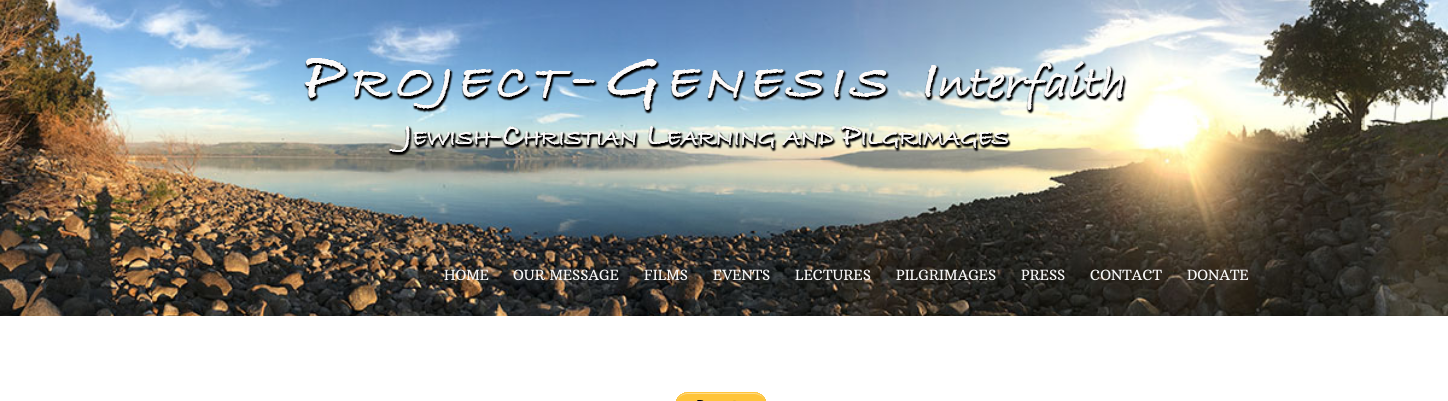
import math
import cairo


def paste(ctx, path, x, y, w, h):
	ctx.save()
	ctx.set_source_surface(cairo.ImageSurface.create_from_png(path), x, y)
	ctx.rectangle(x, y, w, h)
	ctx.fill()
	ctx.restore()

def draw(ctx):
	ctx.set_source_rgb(1, 1, 1)
	ctx.paint()
	paste(ctx, 'media/1.png', 0, 0, 1448, 316)
	paste(ctx, 'media/2.png', 303, 58, 824, 98)
	ctx.select_font_face('Arbutus Slab')
	ctx.set_font_size(14)
	ctx.set_source_rgb(0.969, 0.969, 0.969)
	for x, y, s in [
		(444, 280, 'HOME'),
		(513, 280, 'OUR MESSAGE'),
		(644, 280, 'FILMS'),
		(713, 280, 'EVENTS'),
		(795, 280, 'LECTURES'),
		(896, 280, 'PILGRIMAGES'),
		(1021, 280, 'PRESS'),
		(1090, 280, 'CONTACT'),
		(1187, 280, 'DONATE'),
	]:
		ctx.move_to(x, y)
		ctx.show_text(s)
	paste(ctx, 'media/3.png', 676, 392, 90, 9)


surface = cairo.ImageSurface(cairo.FORMAT_RGB24, 1448, 401)
ctx = cairo.Context(surface)
options = cairo.FontOptions()
options.set_hint_metrics(cairo.HINT_METRICS_OFF)
options.set_hint_style(cairo.HINT_STYLE_NONE)
ctx.set_font_options(options)
ctx.set_miter_limit(4)
draw(ctx)
surface.write_to_png('image.png')
